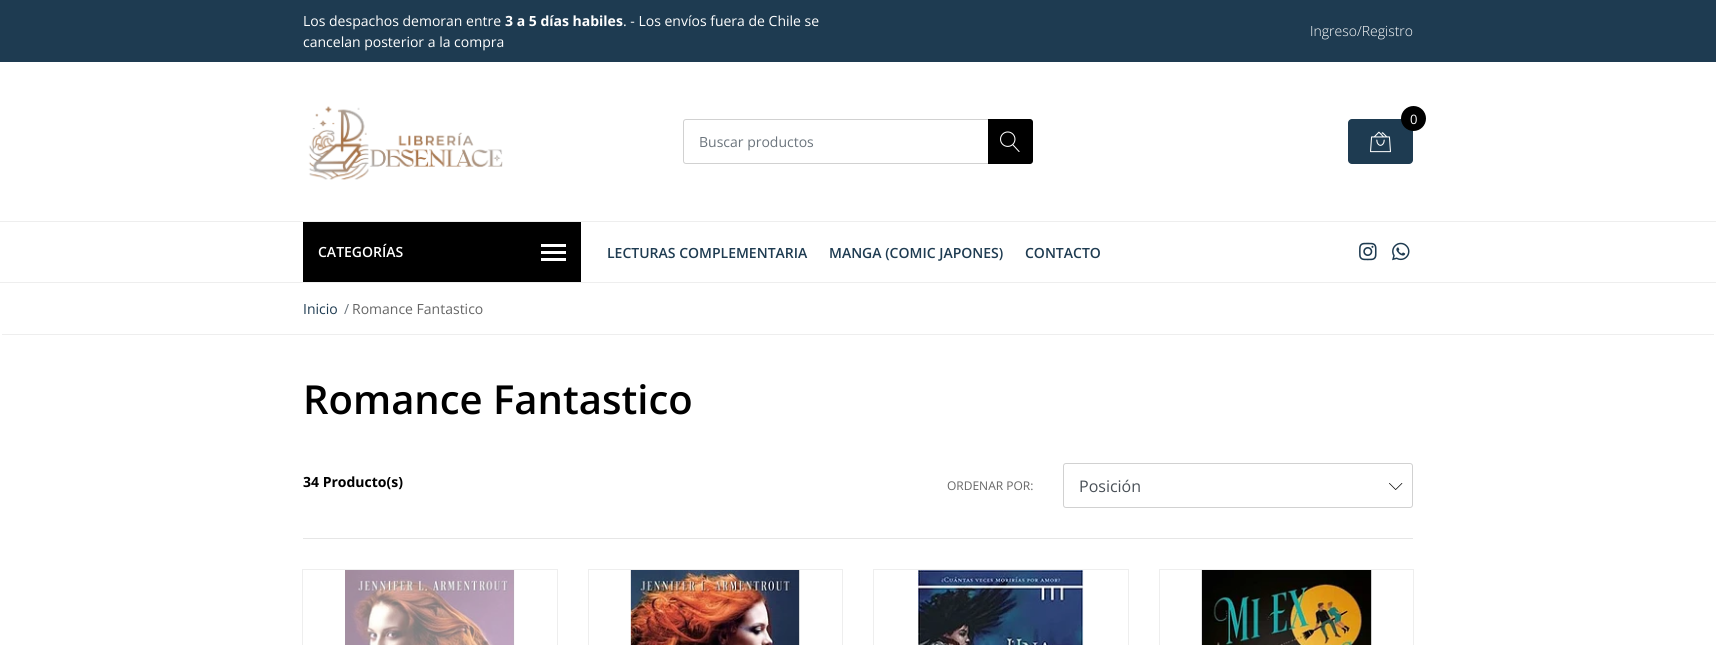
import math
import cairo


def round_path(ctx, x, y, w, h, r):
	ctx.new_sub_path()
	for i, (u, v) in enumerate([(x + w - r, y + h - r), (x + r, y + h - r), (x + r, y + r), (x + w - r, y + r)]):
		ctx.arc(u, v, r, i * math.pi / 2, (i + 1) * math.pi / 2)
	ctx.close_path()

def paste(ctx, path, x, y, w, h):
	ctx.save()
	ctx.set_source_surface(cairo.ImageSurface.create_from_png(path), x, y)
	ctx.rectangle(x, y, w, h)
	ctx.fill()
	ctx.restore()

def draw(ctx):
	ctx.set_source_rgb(1, 1, 1)
	ctx.paint()
	ctx.set_source_rgb(0.118, 0.231, 0.318)
	ctx.rectangle(0, 0, 1716, 62)
	ctx.fill()
	ctx.select_font_face('Open Sans')
	ctx.set_font_size(14)
	ctx.set_source_rgb(1, 1, 1)
	ctx.move_to(303, 26)
	ctx.show_text('Los despachos demoran entre')
	ctx.select_font_face('Open Sans', cairo.FONT_SLANT_NORMAL, cairo.FONT_WEIGHT_BOLD)
	ctx.move_to(505, 26)
	ctx.show_text('3 a 5 días habiles')
	ctx.select_font_face('Open Sans')
	ctx.move_to(623, 26)
	ctx.show_text('. - Los envíos fuera de Chile se')
	ctx.move_to(303, 47)
	ctx.show_text('cancelan posterior a la compra')
	ctx.select_font_face('Open Sans Light')
	ctx.move_to(1310, 36)
	ctx.show_text('Ingreso/Registro')
	paste(ctx, 'media/1.png', 308, 106, 195, 74)
	ctx.set_source_rgb(0.118, 0.231, 0.318)
	round_path(ctx, 1348, 119, 65, 45, 4)
	ctx.fill()
	paste(ctx, 'media/2.png', 1370, 131, 21, 22)
	ctx.set_source_rgb(0, 0, 0)
	ctx.arc(1413.5, 118.5, 12.5, 0, 2 * math.pi)
	ctx.fill()
	ctx.select_font_face('Open Sans')
	ctx.set_font_size(13)
	ctx.set_source_rgb(1, 1, 1)
	ctx.move_to(1410, 124)
	ctx.show_text('0')
	round_path(ctx, 683.5, 119.5, 349, 44, 2.5)
	ctx.set_source_rgb(0.82, 0.82, 0.82)
	ctx.set_line_width(1)
	ctx.stroke()
	ctx.set_font_size(14)
	ctx.set_source_rgb(0.424, 0.459, 0.49)
	ctx.move_to(699, 147)
	ctx.show_text('Buscar productos')
	ctx.set_source_rgb(0, 0, 0)
	ctx.new_path()
	ctx.move_to(988, 119)
	ctx.line_to(1030, 119)
	ctx.curve_to(1031.5, 119, 1033, 120.5, 1033, 122)
	ctx.line_to(1033, 161)
	ctx.curve_to(1033, 162.5, 1031.5, 164, 1030, 164)
	ctx.line_to(988, 164)
	ctx.close_path()
	ctx.fill()
	paste(ctx, 'media/3.png', 1000, 131, 20, 21)
	ctx.set_source_rgb(0.933, 0.933, 0.933)
	ctx.rectangle(0, 221, 1716, 1)
	ctx.rectangle(0, 282, 1716, 1)
	ctx.fill()
	ctx.set_source_rgb(0, 0, 0)
	ctx.rectangle(303, 222, 278, 60)
	ctx.fill()
	ctx.select_font_face('Open Sans SemiBold')
	ctx.set_source_rgb(1, 1, 1)
	ctx.move_to(318, 257)
	ctx.show_text('CATEGORÍAS')
	ctx.rectangle(541, 244, 25, 3)
	ctx.rectangle(541, 251, 25, 3)
	ctx.rectangle(541, 258, 25, 3)
	ctx.fill()
	ctx.set_source_rgb(0.118, 0.231, 0.318)
	for x, y, s in [
		(607, 258, 'LECTURAS COMPLEMENTARIA'),
		(829, 258, 'MANGA (COMIC JAPONES)'),
		(1025, 258, 'CONTACTO'),
	]:
		ctx.move_to(x, y)
		ctx.show_text(s)
	paste(ctx, 'media/4.png', 1359, 242, 18, 19)
	paste(ctx, 'media/5.png', 1392, 242, 18, 19)
	ctx.set_source_rgb(0.933, 0.933, 0.933)
	ctx.rectangle(2, 334, 1712, 1)
	ctx.fill()
	ctx.select_font_face('Open Sans')
	ctx.set_source_rgb(0.118, 0.231, 0.318)
	ctx.move_to(303, 314)
	ctx.show_text('Inicio')
	ctx.set_source_rgb(0.424, 0.459, 0.49)
	ctx.move_to(344, 314)
	ctx.show_text('/')
	ctx.set_source_rgb(0.4, 0.4, 0.4)
	ctx.move_to(352, 314)
	ctx.show_text('Romance Fantastico')
	ctx.select_font_face('Open Sans SemiBold')
	ctx.set_font_size(40)
	ctx.set_source_rgb(0, 0, 0)
	ctx.move_to(303, 414)
	ctx.show_text('Romance Fantastico')
	ctx.select_font_face('Open Sans', cairo.FONT_SLANT_NORMAL, cairo.FONT_WEIGHT_BOLD)
	ctx.set_font_size(14)
	ctx.move_to(303, 487)
	ctx.show_text('34 Producto(s)')
	ctx.select_font_face('Open Sans')
	ctx.set_font_size(12)
	ctx.set_source_rgb(0.4, 0.4, 0.4)
	ctx.move_to(947, 490)
	ctx.show_text('ORDENAR POR:')
	paste(ctx, 'media/6.png', 1389, 483, 14, 7)
	round_path(ctx, 1063.5, 463.5, 349, 44, 2.5)
	ctx.set_source_rgb(0.82, 0.82, 0.82)
	ctx.stroke()
	ctx.set_font_size(16)
	ctx.set_source_rgb(0.286, 0.314, 0.341)
	ctx.move_to(1079, 492)
	ctx.show_text('Posición')
	ctx.set_source_rgb(0.902, 0.902, 0.902)
	ctx.rectangle(303, 538, 1110, 1)
	ctx.fill()
	ctx.rectangle(302.5, 569.5, 255, 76)
	ctx.set_source_rgb(0.933, 0.933, 0.933)
	ctx.stroke()
	paste(ctx, 'media/7.png', 345, 570, 170, 75)
	ctx.rectangle(588.5, 569.5, 254, 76)
	ctx.stroke()
	paste(ctx, 'media/8.png', 630, 570, 170, 75)
	ctx.rectangle(873.5, 569.5, 255, 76)
	ctx.stroke()
	paste(ctx, 'media/9.png', 918, 570, 166, 75)
	ctx.rectangle(1159.5, 569.5, 254, 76)
	ctx.stroke()
	paste(ctx, 'media/10.png', 1201, 570, 171, 75)


surface = cairo.ImageSurface(cairo.FORMAT_RGB24, 1716, 645)
ctx = cairo.Context(surface)
options = cairo.FontOptions()
options.set_hint_metrics(cairo.HINT_METRICS_OFF)
options.set_hint_style(cairo.HINT_STYLE_NONE)
ctx.set_font_options(options)
ctx.set_miter_limit(4)
draw(ctx)
surface.write_to_png('image.png')
